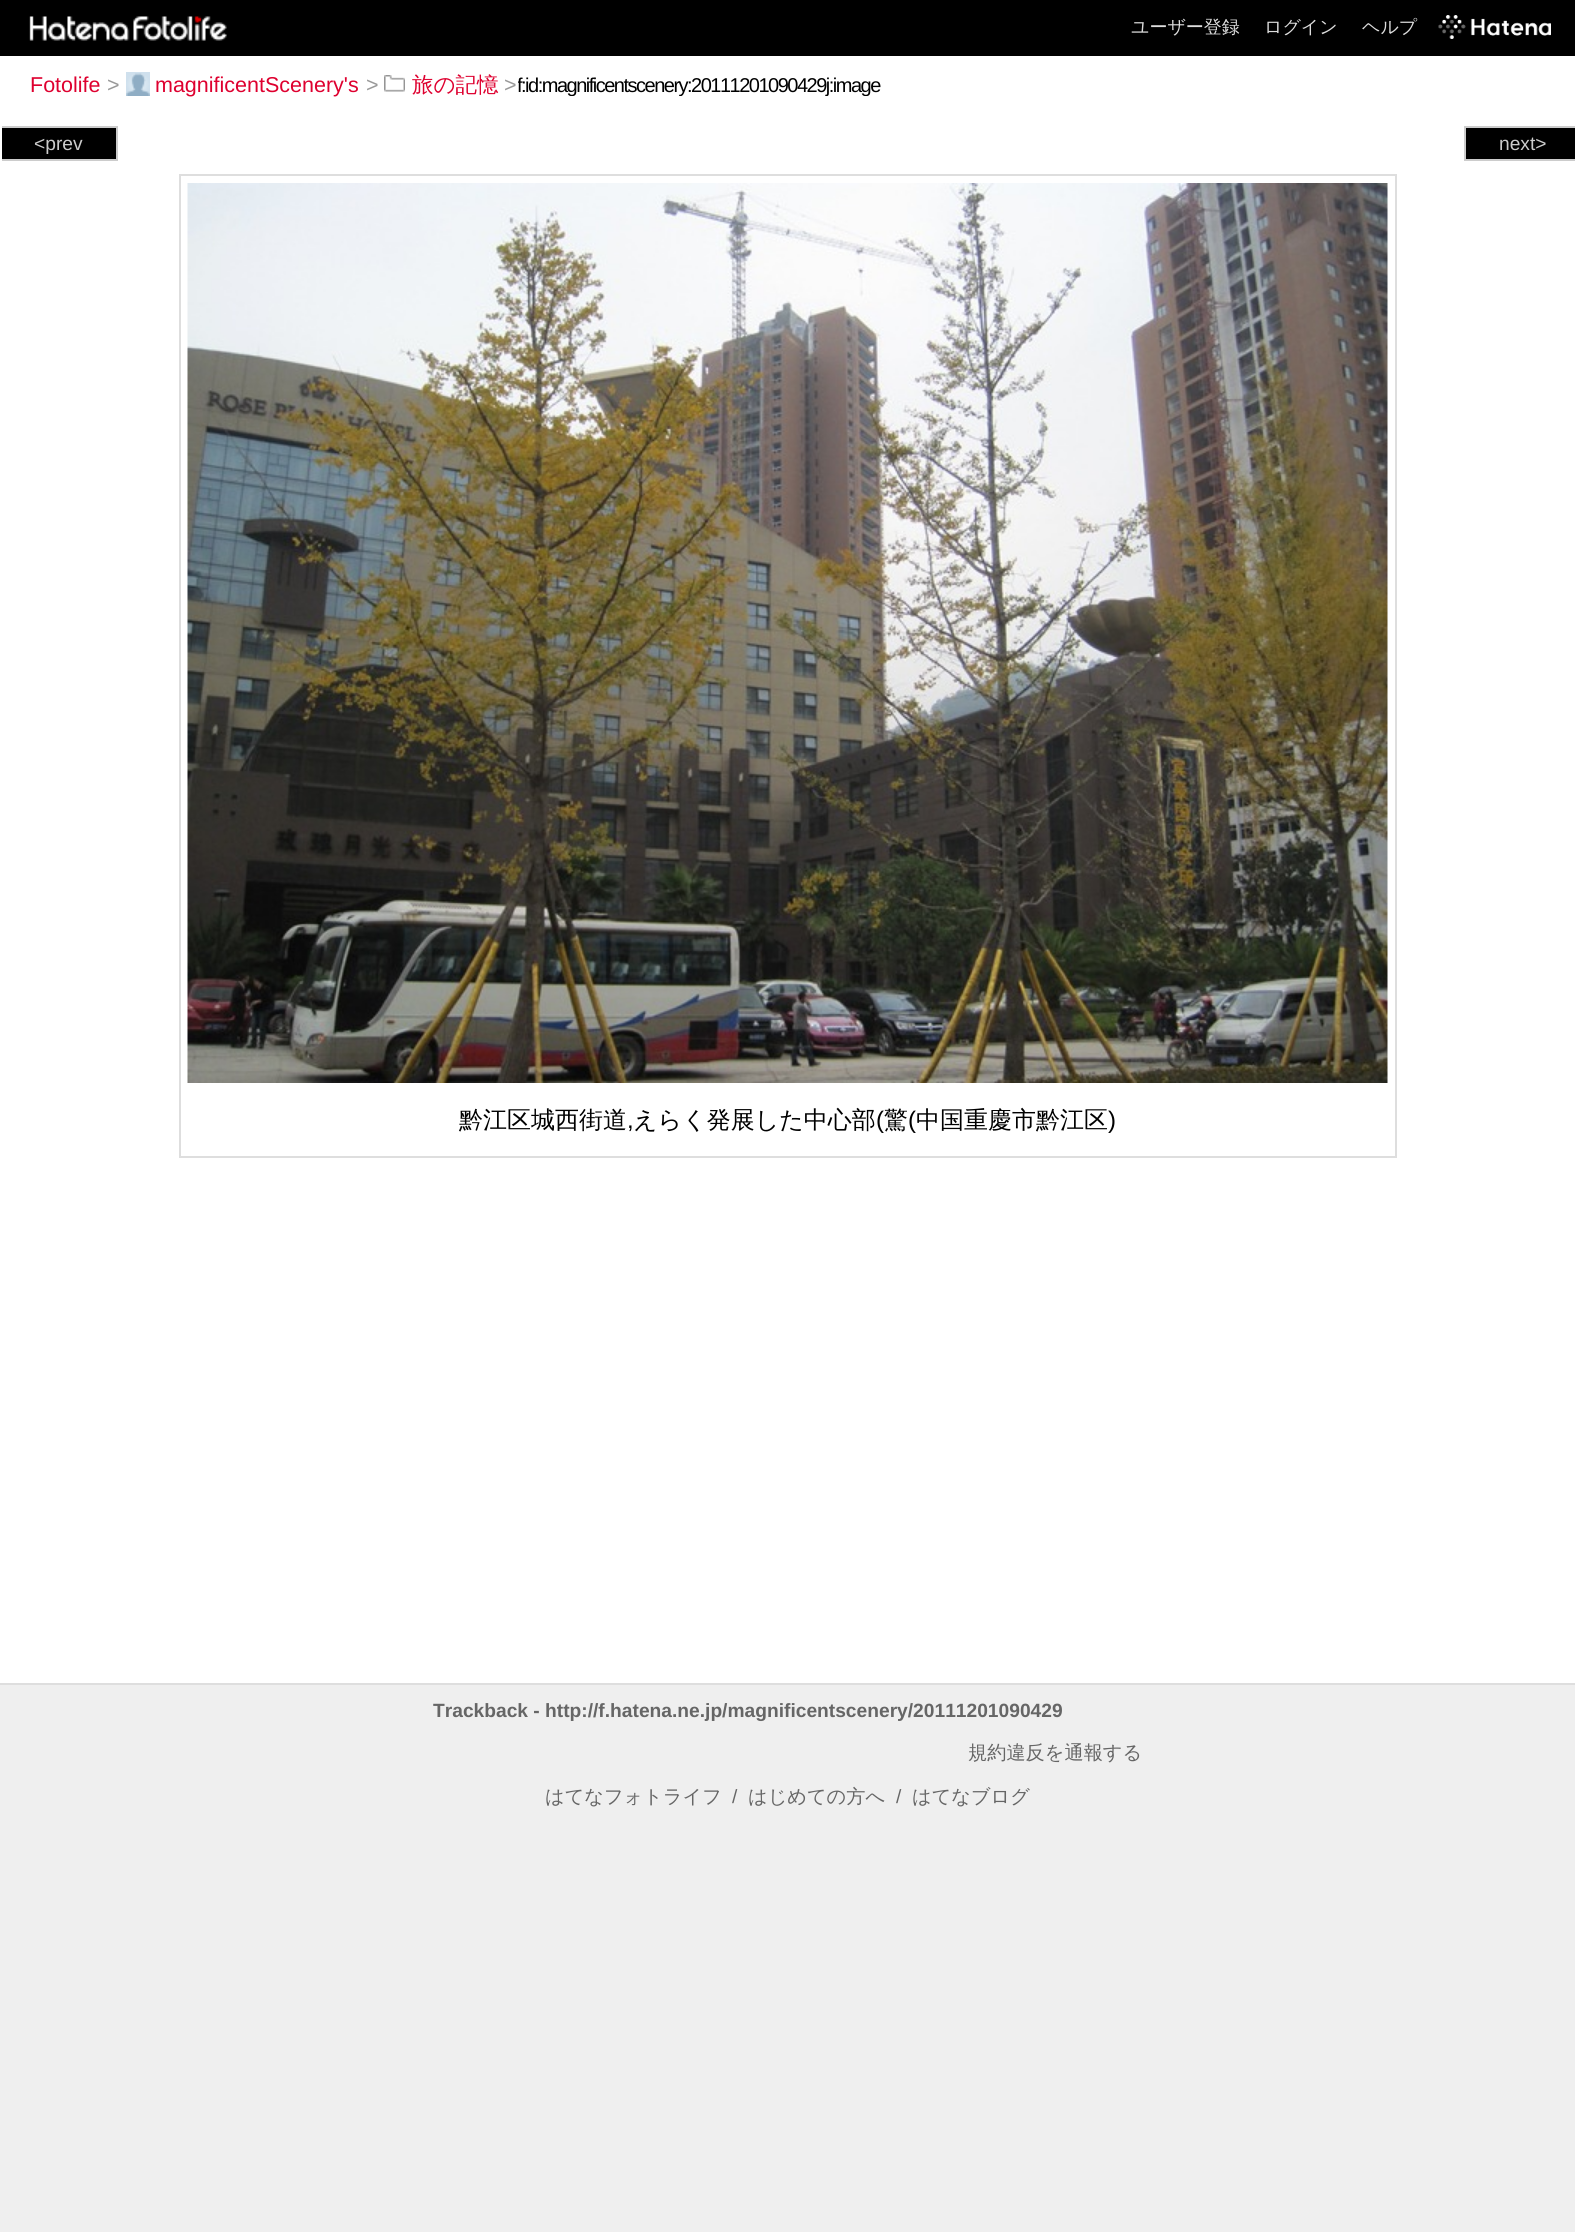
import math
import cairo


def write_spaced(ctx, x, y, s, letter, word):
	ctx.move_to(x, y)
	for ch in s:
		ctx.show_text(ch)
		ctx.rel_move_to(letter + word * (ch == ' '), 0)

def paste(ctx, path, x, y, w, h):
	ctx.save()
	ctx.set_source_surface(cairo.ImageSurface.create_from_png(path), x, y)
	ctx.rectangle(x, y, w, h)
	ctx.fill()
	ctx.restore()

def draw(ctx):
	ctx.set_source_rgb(0.937, 0.937, 0.937)
	ctx.paint()
	ctx.set_source_rgb(0, 0, 0)
	ctx.rectangle(0, 0, 1575, 56)
	ctx.fill()
	paste(ctx, 'media/1.png', 29, 16, 101, 25)
	paste(ctx, 'media/2.png', 133, 16, 94, 25)
	ctx.select_font_face('WenQuanYi Zen Hei Medium')
	ctx.set_font_size(18)
	ctx.set_source_rgb(0.867, 0.867, 0.867)
	for x, y, s in [
		(1131, 33, 'ユーザー登録'),
		(1264, 33, 'ログイン'),
		(1362, 33, 'ヘルプ'),
	]:
		ctx.move_to(x, y)
		ctx.show_text(s)
	paste(ctx, 'media/3.png', 1438, 15, 113, 24)
	ctx.set_source_rgb(1, 1, 1)
	ctx.rectangle(0, 56, 1575, 1627)
	ctx.fill()
	ctx.select_font_face('Liberation Sans')
	ctx.set_font_size(21.5)
	ctx.set_source_rgb(0.871, 0, 0.184)
	ctx.move_to(30, 92)
	ctx.show_text('Fotolife')
	ctx.set_source_rgb(0.6, 0.6, 0.6)
	ctx.move_to(107, 92)
	ctx.show_text('>')
	paste(ctx, 'media/4.png', 126, 72, 24, 24)
	ctx.set_source_rgb(0.871, 0, 0.184)
	ctx.move_to(155, 92)
	ctx.show_text('magnificentScenery\'s')
	ctx.set_source_rgb(0.6, 0.6, 0.6)
	ctx.move_to(366, 92)
	ctx.show_text('>')
	paste(ctx, 'media/5.png', 384, 75, 21, 17)
	ctx.select_font_face('WenQuanYi Zen Hei Medium')
	ctx.set_source_rgb(0.871, 0, 0.184)
	ctx.move_to(412, 92)
	ctx.show_text('旅の記憶')
	ctx.select_font_face('Liberation Sans')
	ctx.set_source_rgb(0.6, 0.6, 0.6)
	ctx.move_to(504, 92)
	ctx.show_text('>')
	ctx.save()
	ctx.rectangle(518, 74, 565, 22)
	ctx.clip()
	ctx.set_font_size(20)
	ctx.set_source_rgb(0, 0, 0)
	write_spaced(ctx, 517, 92, 'f:id:magnificentscenery:20111201090429j:image', -1.5, 0)
	ctx.restore()
	ctx.set_source_rgb(0.871, 0.871, 0.871)
	ctx.rectangle(0, 1683, 1575, 2)
	ctx.fill()
	ctx.set_source_rgb(0, 0, 0)
	ctx.rectangle(2, 128, 114, 31)
	ctx.fill()
	ctx.set_source_rgb(0.8, 0.8, 0.8)
	ctx.rectangle(2, 126, 115, 2)
	ctx.rectangle(116, 126, 2, 35)
	ctx.rectangle(2, 159, 115, 2)
	ctx.fill()
	ctx.set_font_size(19.2)
	ctx.move_to(34, 150)
	ctx.show_text('<prev')
	ctx.set_source_rgb(0, 0, 0)
	ctx.rectangle(1466, 128, 109, 31)
	ctx.fill()
	ctx.set_source_rgb(0.8, 0.8, 0.8)
	ctx.rectangle(1464, 126, 111, 2)
	ctx.rectangle(1464, 159, 111, 2)
	ctx.rectangle(1464, 126, 2, 35)
	ctx.fill()
	ctx.move_to(1499, 150)
	ctx.show_text('next>')
	ctx.rectangle(180, 175, 1216, 982)
	ctx.set_source_rgb(0.871, 0.871, 0.871)
	ctx.stroke()
	paste(ctx, 'media/6.png', 187, 183, 1201, 900)
	ctx.select_font_face('WenQuanYi Zen Hei Medium')
	ctx.set_font_size(24)
	ctx.set_source_rgb(0, 0, 0)
	ctx.move_to(459, 1128)
	ctx.show_text('黔江区城西街道')
	ctx.select_font_face('Liberation Sans')
	ctx.move_to(627, 1128)
	ctx.show_text(',')
	ctx.select_font_face('WenQuanYi Zen Hei Medium')
	ctx.move_to(633, 1128)
	ctx.show_text('えらく発展した中心部')
	ctx.select_font_face('Liberation Sans')
	ctx.move_to(876, 1128)
	ctx.show_text('(')
	ctx.select_font_face('WenQuanYi Zen Hei Medium')
	ctx.move_to(884, 1128)
	ctx.show_text('驚')
	ctx.select_font_face('Liberation Sans')
	ctx.move_to(908, 1128)
	ctx.show_text('(')
	ctx.select_font_face('WenQuanYi Zen Hei Medium')
	ctx.move_to(916, 1128)
	ctx.show_text('中国重慶市黔江区')
	ctx.select_font_face('Liberation Sans')
	ctx.move_to(1108, 1128)
	ctx.show_text(')')
	ctx.select_font_face('Liberation Sans', cairo.FONT_SLANT_NORMAL, cairo.FONT_WEIGHT_BOLD)
	ctx.set_font_size(19.2)
	ctx.set_source_rgb(0.4, 0.4, 0.4)
	ctx.move_to(433, 1717)
	ctx.show_text('Trackback - http://f.hatena.ne.jp/magnificentscenery/20111201090429')
	ctx.select_font_face('WenQuanYi Zen Hei Medium')
	ctx.move_to(968, 1759)
	ctx.show_text('規約違反を通報する')
	ctx.move_to(545, 1803)
	ctx.show_text('はてなフォトライフ')
	ctx.select_font_face('Liberation Sans')
	ctx.move_to(732, 1803)
	ctx.show_text('/')
	ctx.select_font_face('WenQuanYi Zen Hei Medium')
	ctx.move_to(748, 1803)
	ctx.show_text('はじめての方へ')
	ctx.select_font_face('Liberation Sans')
	ctx.move_to(896, 1803)
	ctx.show_text('/')
	ctx.select_font_face('WenQuanYi Zen Hei Medium')
	ctx.move_to(912, 1803)
	ctx.show_text('はてなブログ')


surface = cairo.ImageSurface(cairo.FORMAT_RGB24, 1575, 2232)
ctx = cairo.Context(surface)
options = cairo.FontOptions()
options.set_hint_metrics(cairo.HINT_METRICS_OFF)
options.set_hint_style(cairo.HINT_STYLE_NONE)
ctx.set_font_options(options)
ctx.set_miter_limit(4)
draw(ctx)
surface.write_to_png('image.png')
